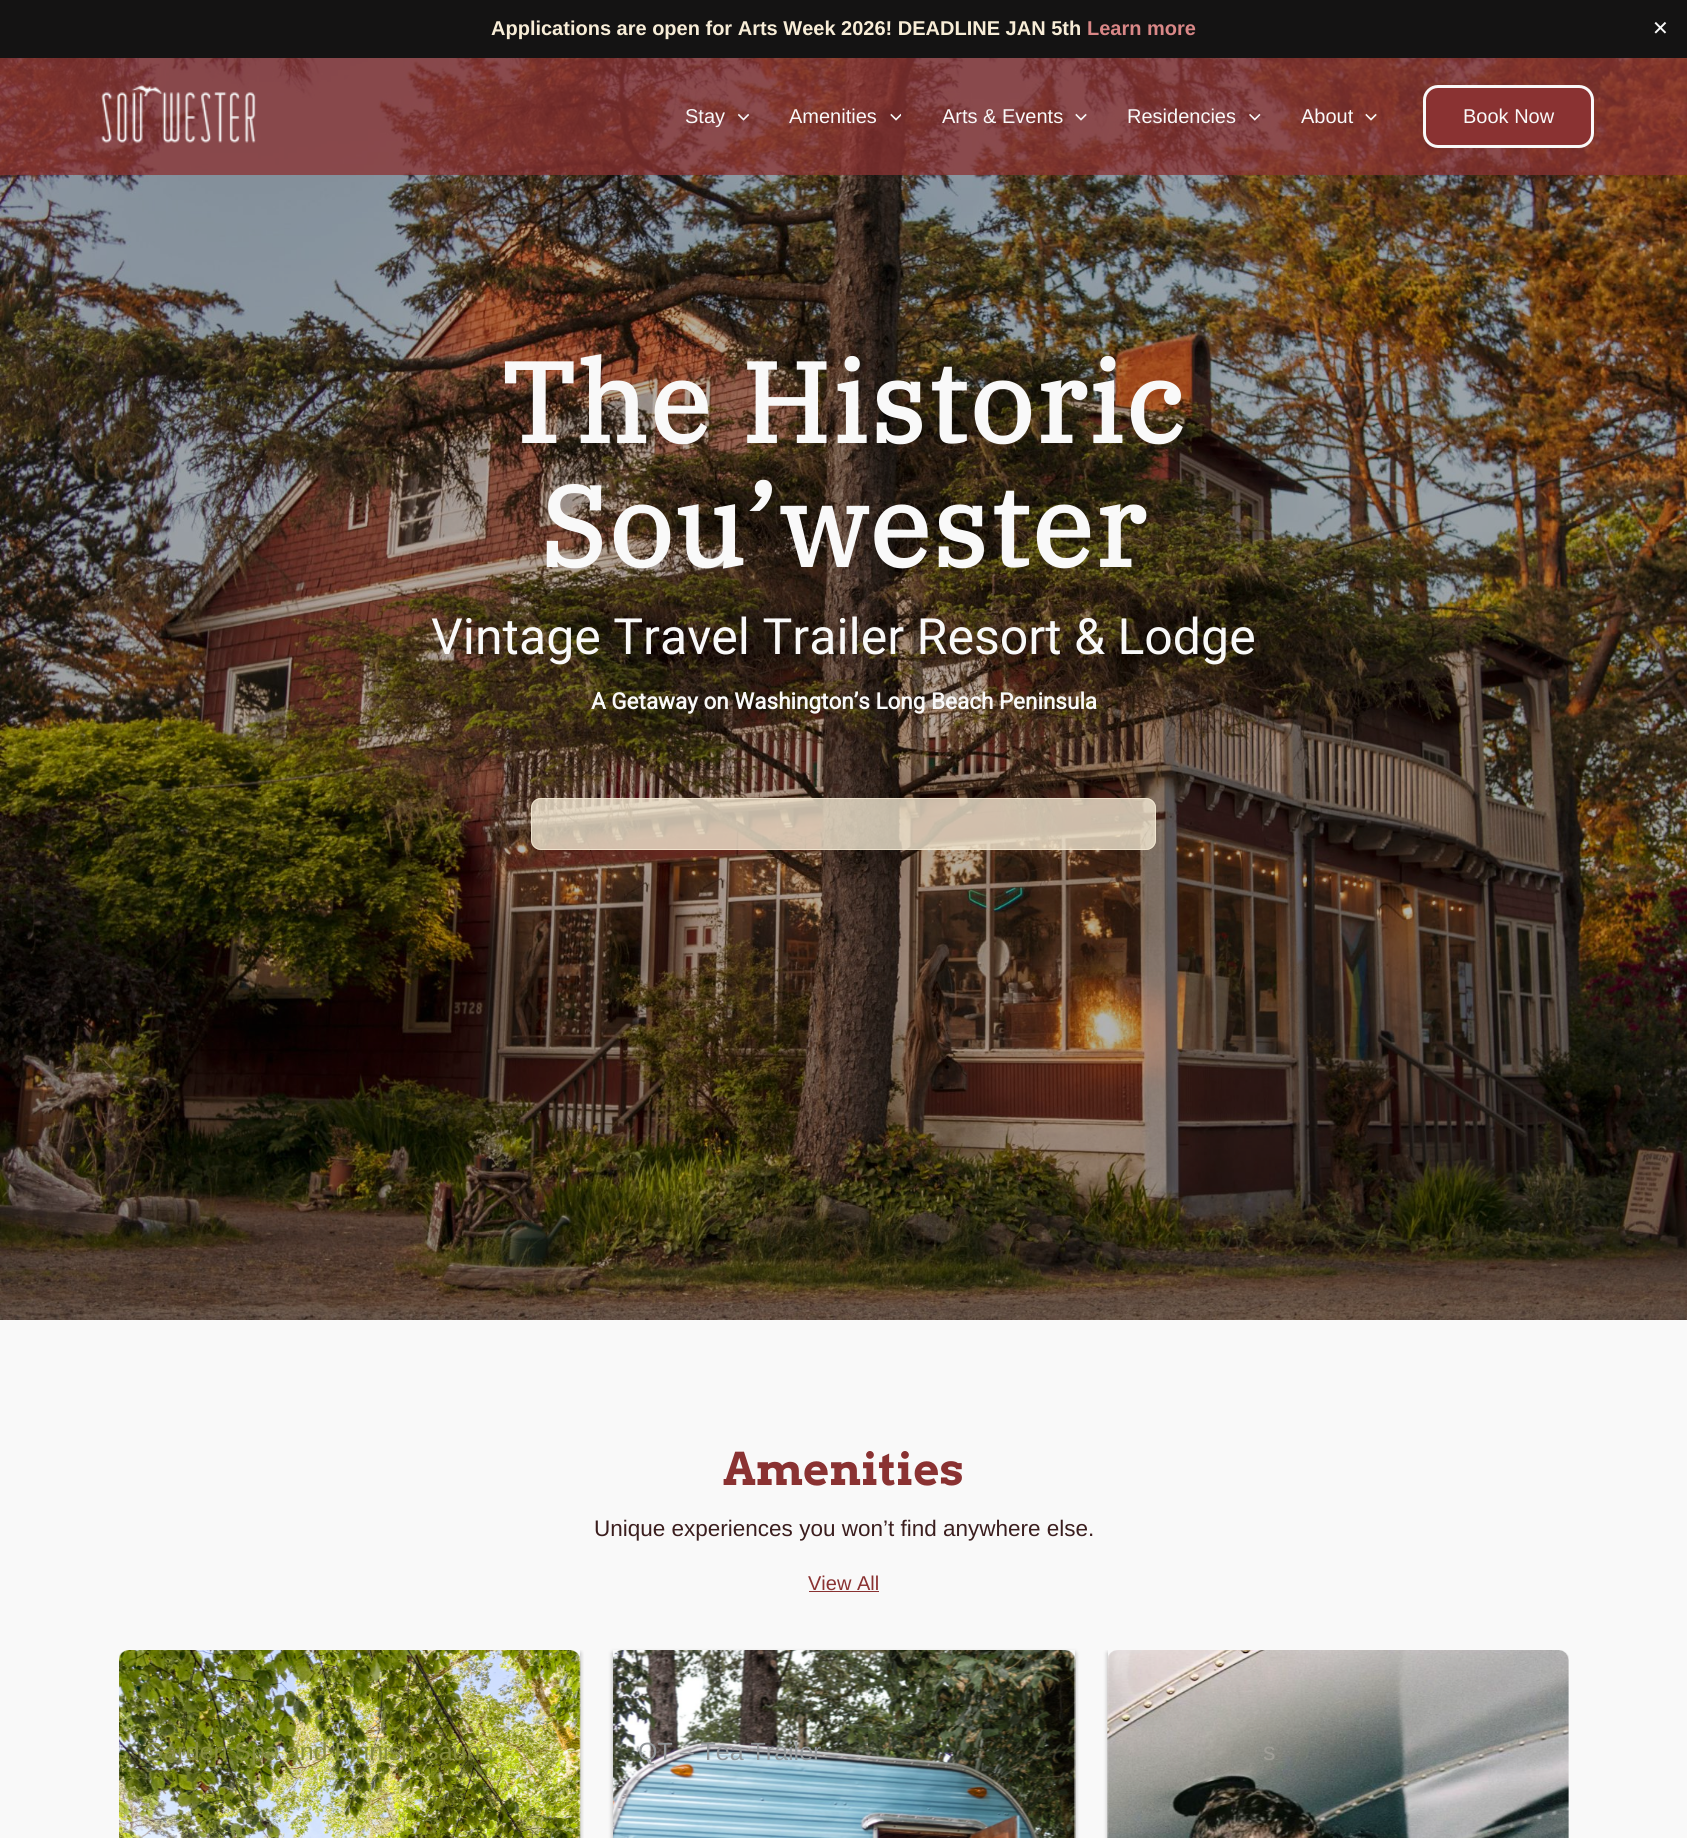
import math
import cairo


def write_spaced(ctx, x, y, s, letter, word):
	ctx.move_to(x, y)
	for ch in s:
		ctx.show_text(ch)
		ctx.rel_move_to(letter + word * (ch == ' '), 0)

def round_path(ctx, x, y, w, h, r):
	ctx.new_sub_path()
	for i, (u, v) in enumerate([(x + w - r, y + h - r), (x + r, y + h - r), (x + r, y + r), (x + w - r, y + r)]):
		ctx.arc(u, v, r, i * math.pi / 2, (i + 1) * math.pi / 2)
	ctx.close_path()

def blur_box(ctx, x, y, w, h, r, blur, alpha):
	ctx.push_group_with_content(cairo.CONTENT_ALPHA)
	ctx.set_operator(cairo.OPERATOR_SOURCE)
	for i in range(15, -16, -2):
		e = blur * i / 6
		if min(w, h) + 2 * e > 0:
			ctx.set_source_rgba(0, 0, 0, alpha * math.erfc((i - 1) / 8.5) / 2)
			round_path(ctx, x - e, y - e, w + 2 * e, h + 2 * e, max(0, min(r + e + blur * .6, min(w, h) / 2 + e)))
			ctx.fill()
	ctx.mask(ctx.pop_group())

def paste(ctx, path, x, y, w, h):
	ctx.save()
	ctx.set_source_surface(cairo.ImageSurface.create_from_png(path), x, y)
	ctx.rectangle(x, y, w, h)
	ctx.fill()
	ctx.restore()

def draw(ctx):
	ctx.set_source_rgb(0.976, 0.976, 0.976)
	ctx.paint()
	ctx.set_source_rgb(0.082, 0.078, 0.078)
	ctx.rectangle(0, 0, 1687, 58)
	ctx.fill()
	ctx.select_font_face('Liberation Sans', cairo.FONT_SLANT_NORMAL, cairo.FONT_WEIGHT_BOLD)
	ctx.set_font_size(20)
	ctx.set_source_rgb(0.969, 0.929, 0.843)
	ctx.move_to(491, 35)
	ctx.show_text('Applications are open for Arts Week 2026! DEADLINE JAN 5th')
	ctx.set_source_rgb(0.851, 0.529, 0.529)
	ctx.move_to(1087, 35)
	ctx.show_text('Learn more')
	ctx.select_font_face('DejaVu Sans')
	ctx.set_source_rgb(0.976, 0.976, 0.976)
	ctx.move_to(1652, 35)
	ctx.show_text('✕')
	paste(ctx, 'media/7.png', 0, 58, 1687, 1262)
	ctx.set_source_rgba(0.541, 0.196, 0.196, 0.76)
	ctx.rectangle(0, 58, 1687, 117)
	ctx.fill()
	paste(ctx, 'media/1.png', 101, 85, 155, 58)
	ctx.select_font_face('Liberation Sans')
	ctx.set_source_rgb(0.976, 0.976, 0.976)
	ctx.move_to(685, 123)
	ctx.show_text('Stay')
	paste(ctx, 'media/2.png', 738, 113, 12, 8)
	ctx.move_to(789, 123)
	ctx.show_text('Amenities')
	paste(ctx, 'media/3.png', 890, 113, 11, 8)
	ctx.move_to(942, 123)
	ctx.show_text('Arts & Events')
	paste(ctx, 'media/4.png', 1075, 113, 12, 8)
	ctx.move_to(1127, 123)
	ctx.show_text('Residencies')
	paste(ctx, 'media/5.png', 1249, 113, 12, 8)
	ctx.move_to(1301, 123)
	ctx.show_text('About')
	paste(ctx, 'media/6.png', 1365, 113, 12, 8)
	ctx.set_source_rgb(0.541, 0.196, 0.196)
	round_path(ctx, 1424.5, 86.5, 168, 60, 13.5)
	ctx.fill_preserve()
	ctx.set_source_rgb(0.976, 0.976, 0.976)
	ctx.set_line_width(3)
	ctx.stroke()
	ctx.move_to(1463, 123)
	ctx.show_text('Book Now')
	ctx.select_font_face('IBM Plex Serif', cairo.FONT_SLANT_NORMAL, cairo.FONT_WEIGHT_BOLD)
	ctx.set_font_size(112.5)
	write_spaced(ctx, 501, 443, 'The Historic', 2.5, 0)
	write_spaced(ctx, 540, 567, 'Sou’wester', 2.5, 0)
	ctx.select_font_face('Roboto')
	ctx.set_font_size(50)
	ctx.move_to(431, 654)
	ctx.show_text('Vintage Travel Trailer Resort & Lodge')
	ctx.select_font_face('Roboto', cairo.FONT_SLANT_NORMAL, cairo.FONT_WEIGHT_BOLD)
	ctx.set_font_size(22.5)
	ctx.move_to(591, 709)
	ctx.show_text('A Getaway on Washington’s Long Beach Peninsula')
	ctx.set_source_rgba(0.969, 0.929, 0.843, 0.77)
	round_path(ctx, 531, 798, 625, 52, 10)
	ctx.fill()
	round_path(ctx, 531.5, 798.5, 624, 51, 9.5)
	ctx.set_line_width(1)
	ctx.stroke()
	ctx.select_font_face('Arvo', cairo.FONT_SLANT_NORMAL, cairo.FONT_WEIGHT_BOLD)
	ctx.set_font_size(45)
	ctx.set_source_rgb(0.541, 0.196, 0.196)
	ctx.move_to(723, 1485)
	ctx.show_text('Amenities')
	ctx.select_font_face('Liberation Sans')
	ctx.set_font_size(22.5)
	ctx.set_source_rgb(0.231, 0.118, 0.118)
	ctx.move_to(594, 1536)
	ctx.show_text('Unique experiences you won’t find anywhere else.')
	ctx.set_font_size(20)
	ctx.set_source_rgb(0.541, 0.196, 0.196)
	ctx.move_to(808, 1590)
	ctx.show_text('View All')
	ctx.rectangle(809, 1591, 70, 1)
	ctx.fill()
	ctx.save()
	ctx.rectangle(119, 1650, 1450, 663)
	ctx.clip()
	ctx.rectangle(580, 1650, 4, 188)
	ctx.clip()
	ctx.set_source_rgb(0, 0, 0)
	blur_box(ctx, 119, 1653, 461, 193, 0, 2.5, 0.32)
	ctx.restore()
	paste(ctx, 'media/8.png', 119, 1650, 462, 188)
	ctx.set_font_size(25)
	ctx.set_source_rgb(0.529, 0.553, 0.255)
	ctx.move_to(144, 1760)
	ctx.show_text('Garden Spa and Finnish Sauna')
	ctx.save()
	ctx.set_fill_rule(cairo.FILL_RULE_EVEN_ODD)
	ctx.new_path()
	ctx.move_to(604, 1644)
	ctx.line_to(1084, 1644)
	ctx.line_to(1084, 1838)
	ctx.line_to(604, 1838)
	ctx.close_path()
	ctx.move_to(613, 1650)
	ctx.line_to(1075, 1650)
	ctx.line_to(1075, 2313)
	ctx.line_to(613, 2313)
	ctx.close_path()
	ctx.clip()
	ctx.set_source_rgb(0, 0, 0)
	blur_box(ctx, 613, 1653, 462, 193, 0, 2.5, 0.32)
	ctx.restore()
	paste(ctx, 'media/9.png', 613, 1650, 463, 188)
	ctx.set_source_rgb(0.573, 0.592, 0.604)
	ctx.move_to(638, 1760)
	ctx.show_text('QT – Tea Trailer')
	ctx.save()
	ctx.rectangle(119, 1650, 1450, 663)
	ctx.clip()
	ctx.set_fill_rule(cairo.FILL_RULE_EVEN_ODD)
	ctx.new_path()
	ctx.move_to(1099, 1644)
	ctx.line_to(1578, 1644)
	ctx.line_to(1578, 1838)
	ctx.line_to(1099, 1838)
	ctx.close_path()
	ctx.move_to(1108, 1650)
	ctx.line_to(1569, 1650)
	ctx.line_to(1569, 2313)
	ctx.line_to(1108, 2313)
	ctx.close_path()
	ctx.clip()
	ctx.set_source_rgb(0, 0, 0)
	blur_box(ctx, 1108, 1653, 461, 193, 0, 2.5, 0.32)
	ctx.restore()
	paste(ctx, 'media/10.png', 1107, 1650, 462, 188)
	ctx.set_source_rgb(0.627, 0.62, 0.596)
	ctx.move_to(1263, 1760)
	ctx.show_text('s')


surface = cairo.ImageSurface(cairo.FORMAT_RGB24, 1687, 1838)
ctx = cairo.Context(surface)
options = cairo.FontOptions()
options.set_hint_metrics(cairo.HINT_METRICS_OFF)
options.set_hint_style(cairo.HINT_STYLE_NONE)
ctx.set_font_options(options)
ctx.set_miter_limit(4)
draw(ctx)
surface.write_to_png('image.png')
